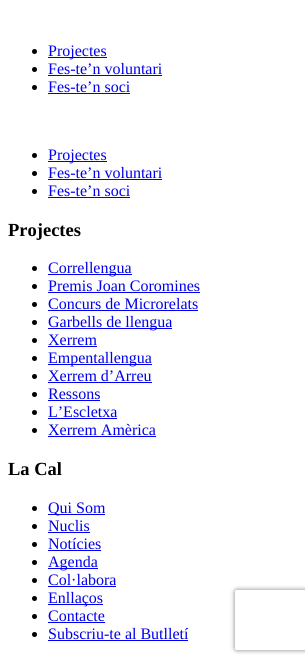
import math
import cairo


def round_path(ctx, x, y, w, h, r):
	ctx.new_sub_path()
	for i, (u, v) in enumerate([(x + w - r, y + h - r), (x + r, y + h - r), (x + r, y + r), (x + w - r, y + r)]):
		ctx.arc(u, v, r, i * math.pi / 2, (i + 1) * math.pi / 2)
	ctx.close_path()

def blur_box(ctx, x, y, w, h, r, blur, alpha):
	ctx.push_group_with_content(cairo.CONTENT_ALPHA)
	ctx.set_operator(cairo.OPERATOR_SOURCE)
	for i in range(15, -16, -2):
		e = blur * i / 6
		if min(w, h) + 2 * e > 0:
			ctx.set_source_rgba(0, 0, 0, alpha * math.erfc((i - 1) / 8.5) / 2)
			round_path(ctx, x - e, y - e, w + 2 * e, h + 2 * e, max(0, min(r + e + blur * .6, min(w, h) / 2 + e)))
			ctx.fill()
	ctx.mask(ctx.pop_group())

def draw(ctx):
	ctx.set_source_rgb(1, 1, 1)
	ctx.paint()
	ctx.set_source_rgb(0, 0, 0)
	ctx.arc(34.5, 51.5, 2.5, 0, 2 * math.pi)
	ctx.fill()
	ctx.set_source_rgb(0, 0, 0.933)
	ctx.rectangle(48, 57, 59, 1)
	ctx.fill()
	ctx.select_font_face('Liberation Serif')
	ctx.set_font_size(16)
	ctx.move_to(48, 56)
	ctx.show_text('Projectes')
	ctx.set_source_rgb(0, 0, 0)
	ctx.new_path()
	ctx.arc(34.5, 69.5, 2.5, 0, 2 * math.pi)
	ctx.fill()
	ctx.set_source_rgb(0, 0, 0.933)
	ctx.move_to(48, 74)
	ctx.show_text('Fes-te’n voluntari')
	ctx.rectangle(48, 75, 114, 1)
	ctx.fill()
	ctx.set_source_rgb(0, 0, 0)
	ctx.arc(34.5, 87.5, 2.5, 0, 2 * math.pi)
	ctx.fill()
	ctx.set_source_rgb(0, 0, 0.933)
	ctx.move_to(48, 92)
	ctx.show_text('Fes-te’n soci')
	ctx.rectangle(48, 93, 82, 1)
	ctx.fill()
	ctx.set_source_rgb(0, 0, 0)
	ctx.arc(34.5, 155.5, 2.5, 0, 2 * math.pi)
	ctx.fill()
	ctx.set_source_rgb(0, 0, 0.933)
	ctx.rectangle(48, 161, 59, 1)
	ctx.fill()
	ctx.move_to(48, 160)
	ctx.show_text('Projectes')
	ctx.set_source_rgb(0, 0, 0)
	ctx.new_path()
	ctx.arc(34.5, 173.5, 2.5, 0, 2 * math.pi)
	ctx.fill()
	ctx.set_source_rgb(0, 0, 0.933)
	ctx.move_to(48, 178)
	ctx.show_text('Fes-te’n voluntari')
	ctx.rectangle(48, 179, 114, 1)
	ctx.fill()
	ctx.set_source_rgb(0, 0, 0)
	ctx.arc(34.5, 191.5, 2.5, 0, 2 * math.pi)
	ctx.fill()
	ctx.set_source_rgb(0, 0, 0.933)
	ctx.move_to(48, 196)
	ctx.show_text('Fes-te’n soci')
	ctx.rectangle(48, 197, 82, 1)
	ctx.fill()
	ctx.select_font_face('Liberation Serif', cairo.FONT_SLANT_NORMAL, cairo.FONT_WEIGHT_BOLD)
	ctx.set_font_size(18.5)
	ctx.set_source_rgb(0, 0, 0)
	ctx.move_to(8, 236)
	ctx.show_text('Projectes')
	ctx.new_path()
	ctx.arc(34.5, 268.5, 2.5, 0, 2 * math.pi)
	ctx.fill()
	ctx.set_source_rgb(0, 0, 0.933)
	ctx.rectangle(48, 274, 84, 1)
	ctx.fill()
	ctx.select_font_face('Liberation Serif')
	ctx.set_font_size(16)
	ctx.move_to(48, 273)
	ctx.show_text('Correllengua')
	ctx.set_source_rgb(0, 0, 0)
	ctx.new_path()
	ctx.arc(34.5, 286.5, 2.5, 0, 2 * math.pi)
	ctx.fill()
	ctx.set_source_rgb(0, 0, 0.933)
	ctx.move_to(48, 291)
	ctx.show_text('Premis Joan Coromines')
	ctx.rectangle(48, 292, 152, 1)
	ctx.fill()
	ctx.set_source_rgb(0, 0, 0)
	ctx.arc(34.5, 304.5, 2.5, 0, 2 * math.pi)
	ctx.fill()
	ctx.set_source_rgb(0, 0, 0.933)
	ctx.move_to(48, 309)
	ctx.show_text('Concurs de Microrelats')
	ctx.rectangle(48, 310, 150, 1)
	ctx.fill()
	ctx.set_source_rgb(0, 0, 0)
	ctx.arc(34.5, 322.5, 2.5, 0, 2 * math.pi)
	ctx.fill()
	ctx.set_source_rgb(0, 0, 0.933)
	ctx.rectangle(48, 328, 124, 1)
	ctx.fill()
	ctx.move_to(48, 327)
	ctx.show_text('Garbells de llengua')
	ctx.set_source_rgb(0, 0, 0)
	ctx.new_path()
	ctx.arc(34.5, 340.5, 2.5, 0, 2 * math.pi)
	ctx.fill()
	ctx.set_source_rgb(0, 0, 0.933)
	ctx.move_to(48, 345)
	ctx.show_text('Xerrem')
	ctx.rectangle(48, 346, 49, 1)
	ctx.fill()
	ctx.set_source_rgb(0, 0, 0)
	ctx.arc(34.5, 358.5, 2.5, 0, 2 * math.pi)
	ctx.fill()
	ctx.set_source_rgb(0, 0, 0.933)
	ctx.rectangle(48, 364, 104, 1)
	ctx.fill()
	ctx.move_to(48, 363)
	ctx.show_text('Empentallengua')
	ctx.set_source_rgb(0, 0, 0)
	ctx.new_path()
	ctx.arc(34.5, 376.5, 2.5, 0, 2 * math.pi)
	ctx.fill()
	ctx.set_source_rgb(0, 0, 0.933)
	ctx.move_to(48, 381)
	ctx.show_text('Xerrem d’Arreu')
	ctx.rectangle(48, 382, 104, 1)
	ctx.fill()
	ctx.set_source_rgb(0, 0, 0)
	ctx.arc(34.5, 394.5, 2.5, 0, 2 * math.pi)
	ctx.fill()
	ctx.set_source_rgb(0, 0, 0.933)
	ctx.move_to(48, 399)
	ctx.show_text('Ressons')
	ctx.rectangle(48, 400, 52, 1)
	ctx.fill()
	ctx.set_source_rgb(0, 0, 0)
	ctx.arc(34.5, 412.5, 2.5, 0, 2 * math.pi)
	ctx.fill()
	ctx.set_source_rgb(0, 0, 0.933)
	ctx.move_to(48, 417)
	ctx.show_text('L’Escletxa')
	ctx.rectangle(48, 418, 69, 1)
	ctx.fill()
	ctx.set_source_rgb(0, 0, 0)
	ctx.arc(34.5, 430.5, 2.5, 0, 2 * math.pi)
	ctx.fill()
	ctx.set_source_rgb(0, 0, 0.933)
	ctx.move_to(48, 435)
	ctx.show_text('Xerrem Amèrica')
	ctx.rectangle(48, 436, 108, 1)
	ctx.fill()
	ctx.select_font_face('Liberation Serif', cairo.FONT_SLANT_NORMAL, cairo.FONT_WEIGHT_BOLD)
	ctx.set_font_size(18.5)
	ctx.set_source_rgb(0, 0, 0)
	ctx.move_to(8, 475)
	ctx.show_text('La Cal')
	ctx.new_path()
	ctx.arc(34.5, 508.5, 2.5, 0, 2 * math.pi)
	ctx.fill()
	ctx.set_source_rgb(0, 0, 0.933)
	ctx.rectangle(48, 514, 57, 1)
	ctx.fill()
	ctx.select_font_face('Liberation Serif')
	ctx.set_font_size(16)
	ctx.move_to(48, 513)
	ctx.show_text('Qui Som')
	ctx.set_source_rgb(0, 0, 0)
	ctx.new_path()
	ctx.arc(34.5, 526.5, 2.5, 0, 2 * math.pi)
	ctx.fill()
	ctx.set_source_rgb(0, 0, 0.933)
	ctx.move_to(48, 531)
	ctx.show_text('Nuclis')
	ctx.rectangle(48, 532, 42, 1)
	ctx.fill()
	ctx.set_source_rgb(0, 0, 0)
	ctx.arc(34.5, 544.5, 2.5, 0, 2 * math.pi)
	ctx.fill()
	ctx.set_source_rgb(0, 0, 0.933)
	ctx.move_to(48, 549)
	ctx.show_text('Notícies')
	ctx.rectangle(48, 550, 53, 1)
	ctx.fill()
	ctx.set_source_rgb(0, 0, 0)
	ctx.arc(34.5, 562.5, 2.5, 0, 2 * math.pi)
	ctx.fill()
	ctx.set_source_rgb(0, 0, 0.933)
	ctx.rectangle(48, 568, 50, 1)
	ctx.fill()
	ctx.move_to(48, 567)
	ctx.show_text('Agenda')
	ctx.set_source_rgb(0, 0, 0)
	ctx.new_path()
	ctx.arc(34.5, 580.5, 2.5, 0, 2 * math.pi)
	ctx.fill()
	ctx.set_source_rgb(0, 0, 0.933)
	ctx.move_to(48, 585)
	ctx.show_text('Col·labora')
	ctx.rectangle(48, 586, 68, 1)
	ctx.fill()
	ctx.set_source_rgb(0, 0, 0)
	ctx.arc(34.5, 598.5, 2.5, 0, 2 * math.pi)
	ctx.fill()
	ctx.set_source_rgb(0, 0, 0.933)
	ctx.rectangle(48, 604, 55, 1)
	ctx.fill()
	ctx.move_to(48, 603)
	ctx.show_text('Enllaços')
	ctx.set_source_rgb(0, 0, 0)
	ctx.new_path()
	ctx.arc(34.5, 616.5, 2.5, 0, 2 * math.pi)
	ctx.fill()
	ctx.set_source_rgb(0, 0, 0.933)
	ctx.move_to(48, 621)
	ctx.show_text('Contacte')
	ctx.rectangle(48, 622, 57, 1)
	ctx.fill()
	ctx.set_source_rgb(0, 0, 0)
	ctx.arc(34.5, 634.5, 2.5, 0, 2 * math.pi)
	ctx.fill()
	ctx.set_source_rgb(0, 0, 0.933)
	ctx.move_to(48, 639)
	ctx.show_text('Subscriu-te al Butlletí')
	ctx.rectangle(48, 640, 140, 1)
	ctx.fill()
	ctx.save()
	ctx.set_fill_rule(cairo.FILL_RULE_EVEN_ODD)
	ctx.new_path()
	ctx.move_to(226, 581)
	ctx.line_to(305, 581)
	ctx.line_to(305, 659)
	ctx.line_to(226, 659)
	ctx.close_path()
	ctx.move_to(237, 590)
	ctx.line_to(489, 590)
	ctx.curve_to(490, 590, 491, 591, 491, 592)
	ctx.line_to(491, 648)
	ctx.curve_to(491, 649, 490, 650, 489, 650)
	ctx.line_to(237, 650)
	ctx.curve_to(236, 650, 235, 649, 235, 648)
	ctx.line_to(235, 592)
	ctx.curve_to(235, 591, 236, 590, 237, 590)
	ctx.close_path()
	ctx.clip()
	ctx.set_source_rgb(0.502, 0.502, 0.502)
	blur_box(ctx, 235, 590, 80, 60, 2, 2.5, 1)
	ctx.restore()


surface = cairo.ImageSurface(cairo.FORMAT_RGB24, 305, 664)
ctx = cairo.Context(surface)
options = cairo.FontOptions()
options.set_hint_metrics(cairo.HINT_METRICS_OFF)
options.set_hint_style(cairo.HINT_STYLE_NONE)
ctx.set_font_options(options)
ctx.set_miter_limit(4)
draw(ctx)
surface.write_to_png('image.png')
